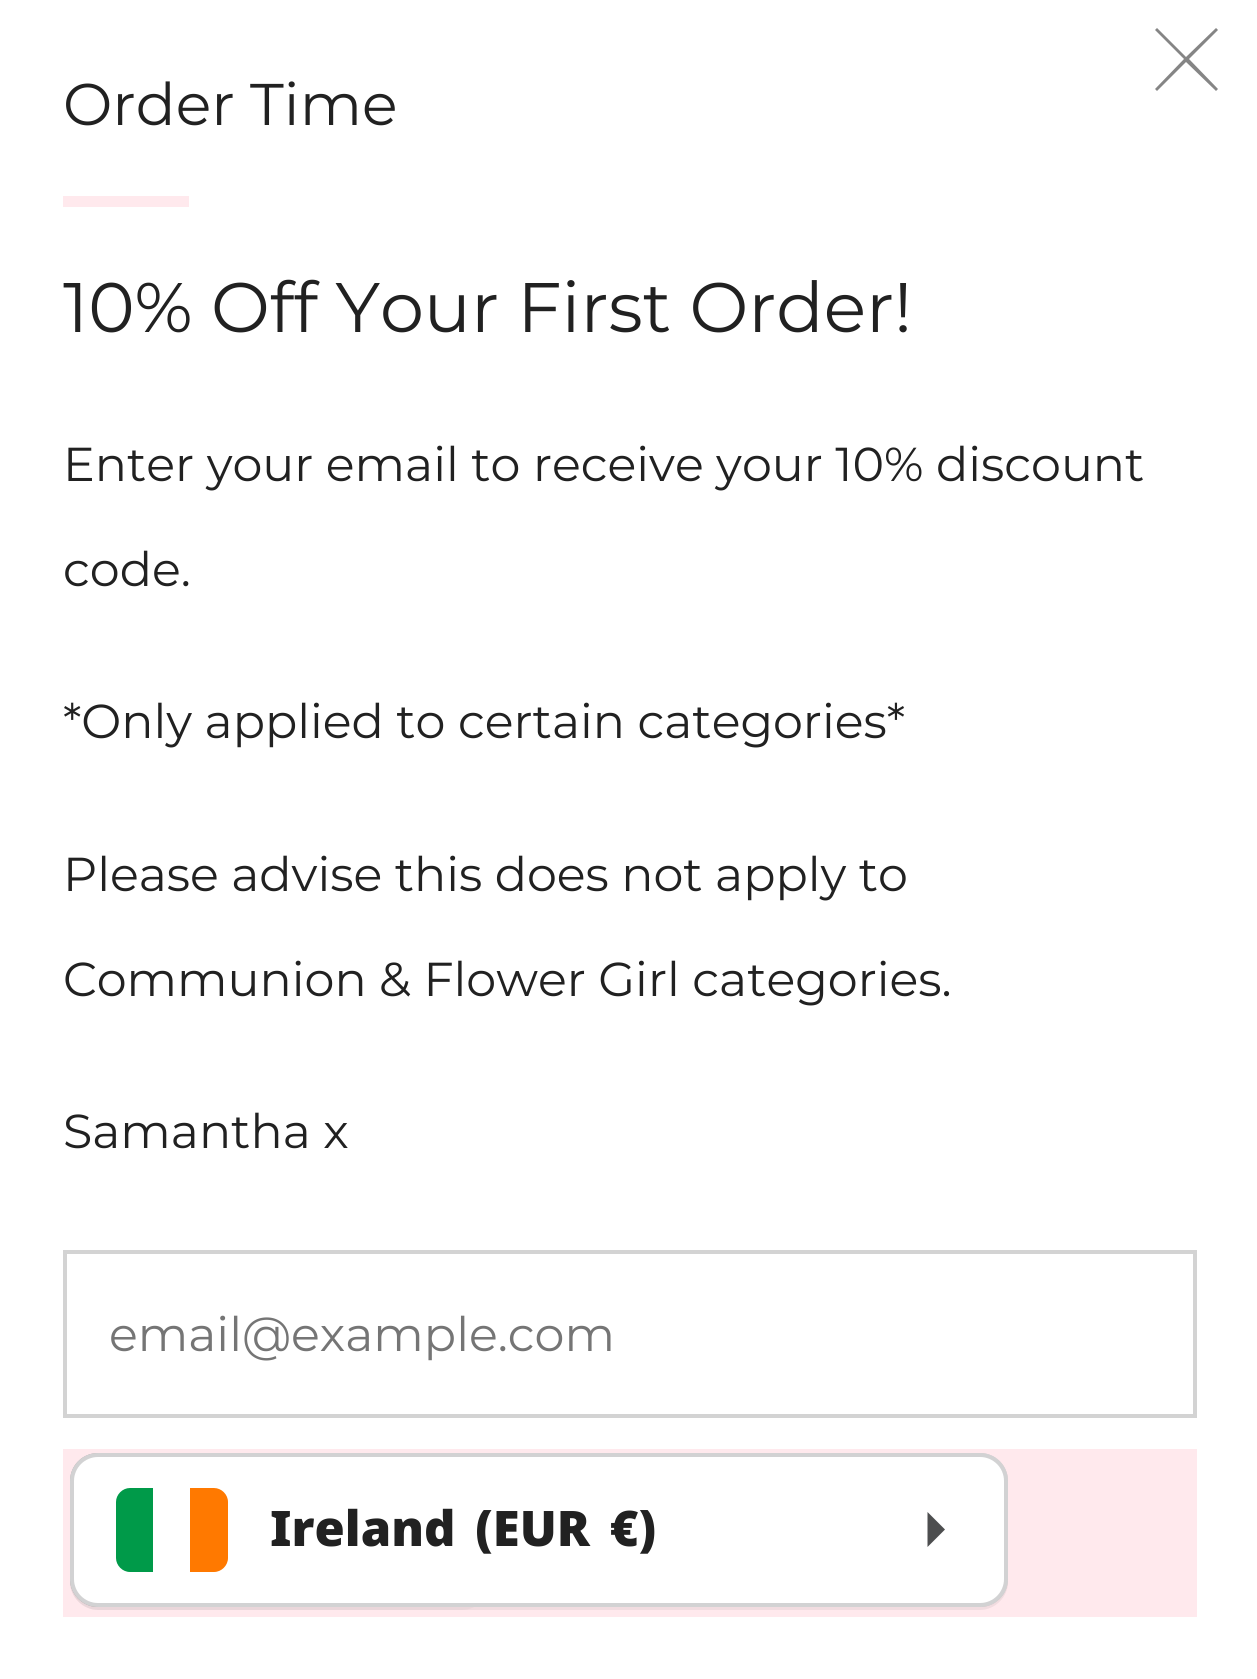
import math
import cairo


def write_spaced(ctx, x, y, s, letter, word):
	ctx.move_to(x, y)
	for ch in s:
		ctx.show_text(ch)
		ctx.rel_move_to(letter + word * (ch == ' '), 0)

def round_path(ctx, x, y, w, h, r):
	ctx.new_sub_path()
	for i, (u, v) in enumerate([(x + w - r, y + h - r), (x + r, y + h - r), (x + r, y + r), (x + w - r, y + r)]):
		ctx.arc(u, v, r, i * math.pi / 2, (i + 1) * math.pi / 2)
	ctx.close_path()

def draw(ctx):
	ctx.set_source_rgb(1, 1, 1)
	ctx.paint()
	ctx.set_source_rgb(0.522, 0.522, 0.522)
	ctx.new_path()
	ctx.move_to(1157, 28)
	ctx.line_to(1155, 30)
	ctx.line_to(1184, 59)
	ctx.line_to(1155, 89)
	ctx.line_to(1157, 91)
	ctx.line_to(1186, 62)
	ctx.line_to(1216, 91)
	ctx.line_to(1218, 89)
	ctx.line_to(1189, 59)
	ctx.line_to(1218, 30)
	ctx.line_to(1216, 28)
	ctx.line_to(1186, 57)
	ctx.close_path()
	ctx.fill()
	ctx.select_font_face('Montserrat')
	ctx.set_font_size(58.75)
	ctx.set_source_rgb(0.129, 0.129, 0.129)
	ctx.move_to(63, 125)
	ctx.show_text('Order Time')
	ctx.set_source_rgb(1, 0.914, 0.929)
	ctx.rectangle(63, 196, 126, 11)
	ctx.fill()
	ctx.set_font_size(70)
	ctx.set_source_rgb(0.129, 0.129, 0.129)
	ctx.move_to(63, 332)
	ctx.show_text('10% Off Your First Order!')
	ctx.set_font_size(47.6)
	for x, y, s in [
		(63, 481, 'Enter your email to receive your 10% discount'),
		(63, 586, 'code.'),
		(63, 738, '*Only applied to certain categories*'),
		(63, 891, 'Please advise this does not apply to'),
		(63, 996, 'Communion & Flower Girl categories.'),
		(63, 1148, 'Samantha x'),
	]:
		ctx.move_to(x, y)
		ctx.show_text(s)
	ctx.rectangle(65, 1252, 1130, 164)
	ctx.set_source_rgb(0.827, 0.827, 0.827)
	ctx.set_line_width(4)
	ctx.stroke()
	ctx.set_source_rgb(0.459, 0.459, 0.459)
	ctx.move_to(109, 1351)
	ctx.show_text('email@example.com')
	ctx.set_source_rgb(1, 0.914, 0.929)
	ctx.rectangle(63, 1449, 1134, 168)
	ctx.fill()
	ctx.set_source_rgb(0.969, 0.886, 0.902)
	ctx.new_path()
	ctx.move_to(70, 1578)
	ctx.line_to(70, 1582)
	ctx.curve_to(70, 1597, 83, 1610, 98, 1610)
	ctx.line_to(980, 1610)
	ctx.curve_to(995, 1610, 1008, 1597, 1008, 1582)
	ctx.line_to(1008, 1578)
	ctx.curve_to(1008, 1594, 995, 1606, 980, 1606)
	ctx.line_to(98, 1606)
	ctx.curve_to(83, 1606, 70, 1594, 70, 1578)
	ctx.close_path()
	ctx.fill()
	round_path(ctx, 72, 1455, 934, 150, 26)
	ctx.set_source_rgba(0.125, 0.133, 0.137, 0.2)
	ctx.stroke()
	ctx.set_source_rgba(0, 0, 0, 0.03)
	ctx.new_path()
	ctx.move_to(70, 1578)
	ctx.line_to(70, 1582)
	ctx.curve_to(70, 1597, 83, 1610, 98, 1610)
	ctx.line_to(462, 1610)
	ctx.curve_to(477, 1610, 490, 1597, 490, 1582)
	ctx.line_to(490, 1578)
	ctx.curve_to(490, 1594, 477, 1606, 462, 1606)
	ctx.line_to(98, 1606)
	ctx.curve_to(83, 1606, 70, 1594, 70, 1578)
	ctx.close_path()
	ctx.fill()
	round_path(ctx, 72, 1455, 416, 150, 26)
	ctx.set_source_rgba(0.125, 0.133, 0.137, 0.2)
	ctx.stroke()
	ctx.set_source_rgba(0, 0, 0, 0.03)
	ctx.new_path()
	ctx.move_to(70, 1578)
	ctx.line_to(70, 1582)
	ctx.curve_to(70, 1597, 83, 1610, 98, 1610)
	ctx.line_to(980, 1610)
	ctx.curve_to(995, 1610, 1008, 1597, 1008, 1582)
	ctx.line_to(1008, 1578)
	ctx.curve_to(1008, 1594, 995, 1606, 980, 1606)
	ctx.line_to(98, 1606)
	ctx.curve_to(83, 1606, 70, 1594, 70, 1578)
	ctx.close_path()
	ctx.fill()
	ctx.set_source_rgb(1, 1, 1)
	round_path(ctx, 70, 1453, 938, 154, 28)
	ctx.fill()
	round_path(ctx, 72, 1455, 934, 150, 26)
	ctx.set_source_rgba(0.125, 0.133, 0.137, 0.2)
	ctx.stroke()
	ctx.set_source_rgb(0, 0.604, 0.286)
	ctx.new_path()
	ctx.move_to(130, 1488)
	ctx.line_to(153, 1488)
	ctx.line_to(153, 1572)
	ctx.line_to(130, 1572)
	ctx.curve_to(122.5, 1572, 116, 1565.5, 116, 1558)
	ctx.line_to(116, 1502)
	ctx.curve_to(116, 1494.5, 122.5, 1488, 130, 1488)
	ctx.close_path()
	ctx.fill()
	ctx.set_source_rgb(1, 0.475, 0)
	ctx.new_path()
	ctx.move_to(190, 1488)
	ctx.line_to(214, 1488)
	ctx.curve_to(221.5, 1488, 228, 1494.5, 228, 1502)
	ctx.line_to(228, 1558)
	ctx.curve_to(228, 1565.5, 221.5, 1572, 214, 1572)
	ctx.line_to(190, 1572)
	ctx.close_path()
	ctx.fill()
	ctx.select_font_face('Noto Sans Black')
	ctx.set_font_size(49)
	ctx.set_source_rgb(0.129, 0.129, 0.129)
	write_spaced(ctx, 270, 1546, 'Ireland (EUR €)', 0, 7)
	ctx.set_source_rgb(0.302, 0.306, 0.31)
	ctx.new_path()
	ctx.move_to(927.5, 1547)
	ctx.line_to(927.5, 1512)
	ctx.line_to(945, 1529.5)
	ctx.close_path()
	ctx.fill()


surface = cairo.ImageSurface(cairo.FORMAT_RGB24, 1257, 1679)
ctx = cairo.Context(surface)
options = cairo.FontOptions()
options.set_hint_metrics(cairo.HINT_METRICS_OFF)
options.set_hint_style(cairo.HINT_STYLE_NONE)
ctx.set_font_options(options)
ctx.set_miter_limit(4)
draw(ctx)
surface.write_to_png('image.png')
